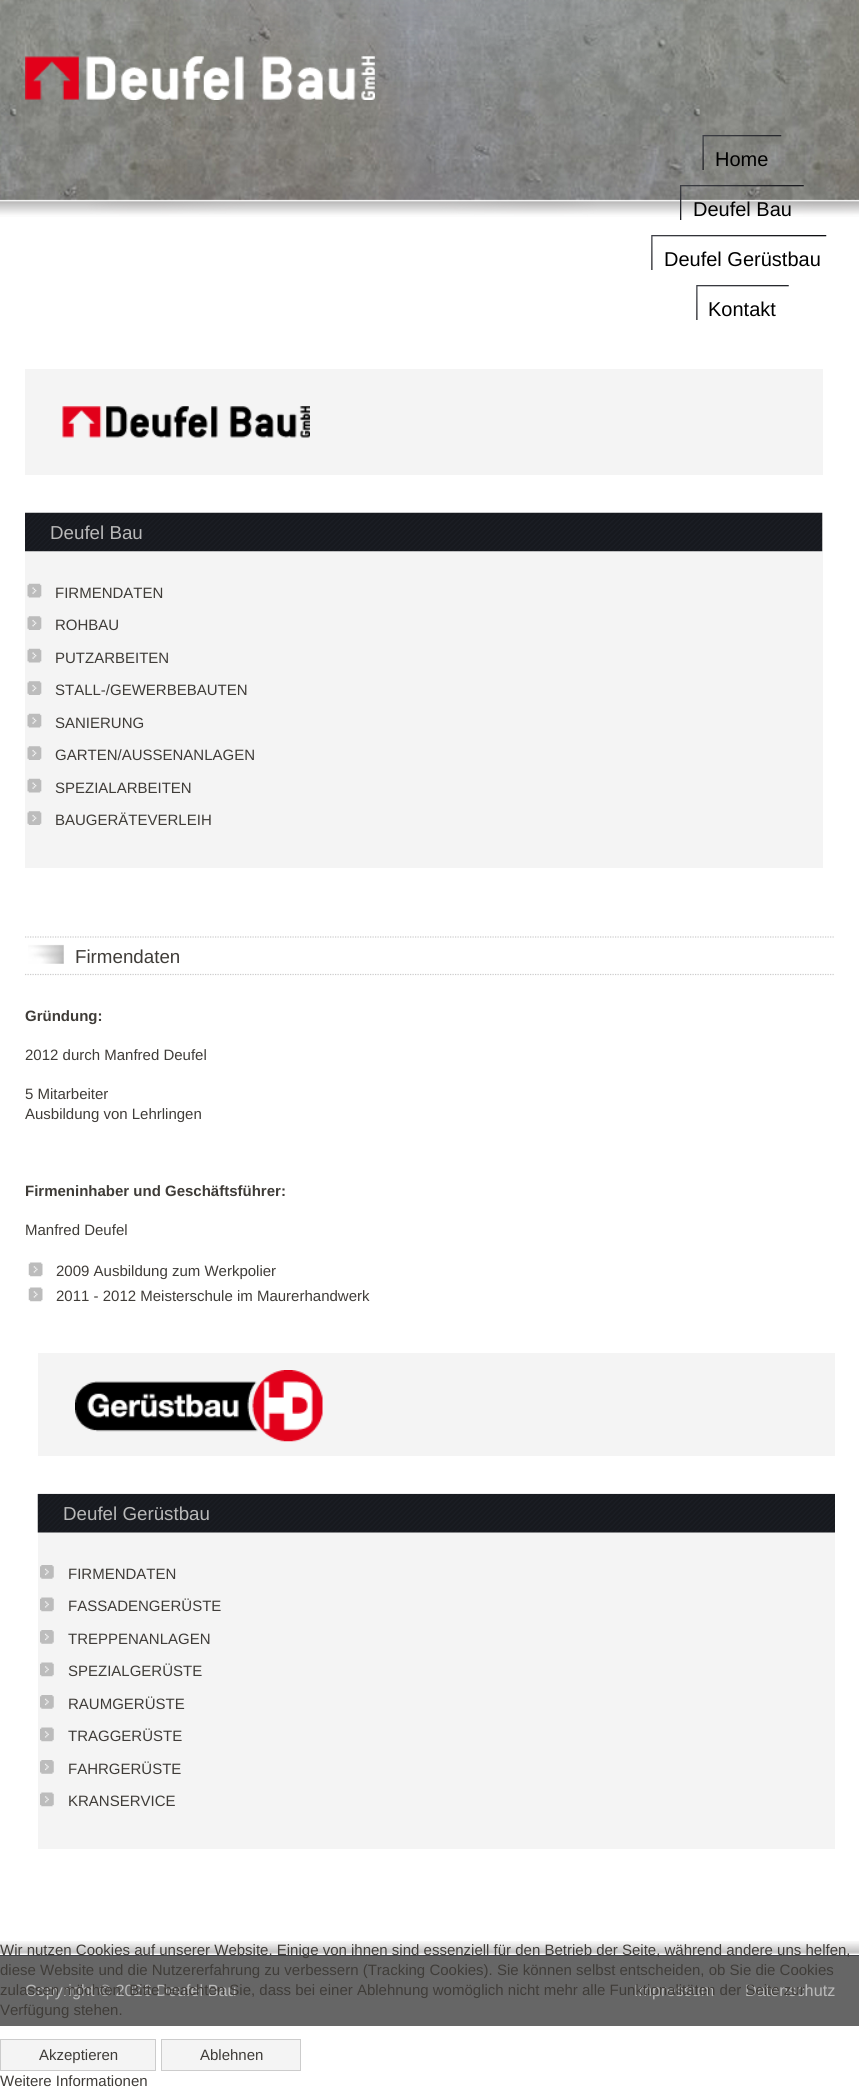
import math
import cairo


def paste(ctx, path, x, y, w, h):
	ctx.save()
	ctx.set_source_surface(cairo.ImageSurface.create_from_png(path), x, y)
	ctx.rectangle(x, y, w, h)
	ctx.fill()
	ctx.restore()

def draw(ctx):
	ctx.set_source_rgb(1, 1, 1)
	ctx.paint()
	paste(ctx, 'media/1.png', 0, 0, 859, 217)
	paste(ctx, 'media/2.png', 155, 0, 528, 82)
	paste(ctx, 'media/3.png', 25, 56, 350, 44)
	paste(ctx, 'media/4.png', 702, 135, 80, 35)
	ctx.select_font_face('Liberation Sans')
	ctx.set_font_size(20)
	ctx.set_source_rgb(0, 0, 0)
	ctx.move_to(715, 166)
	ctx.show_text('Home')
	paste(ctx, 'media/5.png', 680, 185, 124, 35)
	ctx.move_to(693, 216)
	ctx.show_text('Deufel Bau')
	paste(ctx, 'media/6.png', 651, 235, 176, 35)
	ctx.move_to(664, 266)
	ctx.show_text('Deufel Gerüstbau')
	paste(ctx, 'media/7.png', 696, 285, 93, 35)
	ctx.move_to(708, 316)
	ctx.show_text('Kontakt')
	ctx.set_source_rgb(0.957, 0.957, 0.957)
	ctx.rectangle(25, 369, 798, 106)
	ctx.fill()
	paste(ctx, 'media/8.png', 62, 406, 248, 32)
	ctx.rectangle(25, 513, 798, 355)
	ctx.fill()
	paste(ctx, 'media/9.png', 25, 512, 798, 40)
	ctx.set_font_size(18.75)
	ctx.set_source_rgb(0.725, 0.725, 0.725)
	ctx.move_to(50, 539)
	ctx.show_text('Deufel Bau')
	paste(ctx, 'media/10.png', 27, 583, 15, 15)
	ctx.set_font_size(15)
	ctx.set_source_rgb(0.247, 0.235, 0.22)
	ctx.move_to(55, 598)
	ctx.show_text('FIRMENDATEN')
	paste(ctx, 'media/11.png', 27, 616, 15, 14)
	ctx.move_to(55, 630)
	ctx.show_text('ROHBAU')
	paste(ctx, 'media/12.png', 27, 648, 15, 15)
	ctx.move_to(55, 663)
	ctx.show_text('PUTZARBEITEN')
	paste(ctx, 'media/11.png', 27, 681, 15, 14)
	ctx.move_to(55, 695)
	ctx.show_text('STALL-/GEWERBEBAUTEN')
	paste(ctx, 'media/12.png', 27, 713, 15, 15)
	ctx.move_to(55, 728)
	ctx.show_text('SANIERUNG')
	paste(ctx, 'media/11.png', 27, 746, 15, 14)
	ctx.move_to(55, 760)
	ctx.show_text('GARTEN/AUSSENANLAGEN')
	paste(ctx, 'media/13.png', 27, 778, 15, 15)
	ctx.move_to(55, 793)
	ctx.show_text('SPEZIALARBEITEN')
	paste(ctx, 'media/11.png', 27, 811, 15, 14)
	ctx.move_to(55, 825)
	ctx.show_text('BAUGERÄTEVERLEIH')
	paste(ctx, 'media/14.png', 28, 944, 36, 20)
	ctx.new_path()
	ctx.move_to(25, 937)
	ctx.line_to(835, 937)
	ctx.set_source_rgb(0.8, 0.8, 0.8)
	ctx.set_line_width(1.2)
	ctx.set_dash([1.25, 1.25])
	ctx.stroke()
	ctx.new_path()
	ctx.move_to(25, 974.5)
	ctx.line_to(835, 974.5)
	ctx.stroke()
	ctx.set_font_size(18.75)
	ctx.set_source_rgb(0.247, 0.235, 0.22)
	ctx.move_to(75, 963)
	ctx.show_text('Firmendaten')
	ctx.select_font_face('Liberation Sans', cairo.FONT_SLANT_NORMAL, cairo.FONT_WEIGHT_BOLD)
	ctx.set_font_size(15)
	ctx.move_to(25, 1021)
	ctx.show_text('Gründung:')
	ctx.select_font_face('Liberation Sans')
	for x, y, s in [
		(25, 1060, '2012 durch Manfred Deufel'),
		(25, 1099, '5 Mitarbeiter'),
		(25, 1119, 'Ausbildung von Lehrlingen'),
	]:
		ctx.move_to(x, y)
		ctx.show_text(s)
	ctx.select_font_face('Liberation Sans', cairo.FONT_SLANT_NORMAL, cairo.FONT_WEIGHT_BOLD)
	ctx.move_to(25, 1196)
	ctx.show_text('Firmeninhaber und Geschäftsführer:')
	ctx.select_font_face('Liberation Sans')
	ctx.move_to(25, 1235)
	ctx.show_text('Manfred Deufel')
	paste(ctx, 'media/15.png', 28, 1262, 15, 15)
	ctx.move_to(56, 1276)
	ctx.show_text('2009 Ausbildung zum Werkpolier')
	paste(ctx, 'media/15.png', 28, 1287, 15, 15)
	ctx.move_to(56, 1301)
	ctx.show_text('2011 - 2012 Meisterschule im Maurerhandwerk')
	ctx.set_source_rgb(0.957, 0.957, 0.957)
	ctx.rectangle(38, 1353, 797, 103)
	ctx.fill()
	paste(ctx, 'media/16.png', 75, 1370, 248, 72)
	ctx.rectangle(38, 1532, 797, 317)
	ctx.fill()
	paste(ctx, 'media/17.png', 37, 1493, 798, 40)
	ctx.set_font_size(18.75)
	ctx.set_source_rgb(0.725, 0.725, 0.725)
	ctx.move_to(63, 1520)
	ctx.show_text('Deufel Gerüstbau')
	paste(ctx, 'media/18.png', 40, 1565, 14, 14)
	ctx.set_font_size(15)
	ctx.set_source_rgb(0.247, 0.235, 0.22)
	ctx.move_to(68, 1579)
	ctx.show_text('FIRMENDATEN')
	paste(ctx, 'media/19.png', 40, 1597, 14, 15)
	ctx.move_to(68, 1611)
	ctx.show_text('FASSADENGERÜSTE')
	paste(ctx, 'media/18.png', 40, 1630, 14, 14)
	ctx.move_to(68, 1644)
	ctx.show_text('TREPPENANLAGEN')
	paste(ctx, 'media/19.png', 40, 1662, 14, 15)
	ctx.move_to(68, 1676)
	ctx.show_text('SPEZIALGERÜSTE')
	paste(ctx, 'media/18.png', 40, 1695, 14, 14)
	ctx.move_to(68, 1709)
	ctx.show_text('RAUMGERÜSTE')
	paste(ctx, 'media/19.png', 40, 1727, 14, 15)
	ctx.move_to(68, 1741)
	ctx.show_text('TRAGGERÜSTE')
	paste(ctx, 'media/18.png', 40, 1760, 14, 14)
	ctx.move_to(68, 1774)
	ctx.show_text('FAHRGERÜSTE')
	paste(ctx, 'media/19.png', 40, 1792, 14, 15)
	ctx.move_to(68, 1806)
	ctx.show_text('KRANSERVICE')
	paste(ctx, 'media/20.png', 0, 1941, 859, 13)
	ctx.set_source_rgb(0.4, 0.4, 0.4)
	ctx.rectangle(0, 1956, 859, 70)
	ctx.fill()
	ctx.set_source_rgb(0.239, 0.247, 0.271)
	ctx.rectangle(0, 1955, 859, 1)
	ctx.fill()
	ctx.set_source_rgb(0.247, 0.235, 0.22)
	ctx.move_to(0, 1955)
	ctx.show_text('Wir nutzen Cookies auf unserer Website. Einige von ihnen sind essenziell für den Betrieb der Seite, während andere uns helfen,')
	ctx.move_to(0, 1975)
	ctx.show_text('diese Website und die Nutzererfahrung zu verbessern (Tracking Cookies). Sie können selbst entscheiden, ob Sie die Cookies')
	ctx.set_font_size(16.25)
	ctx.set_source_rgb(0.725, 0.725, 0.725)
	for x, y, s in [
		(25, 1996, 'Copyright © 2026 Deufel Bau'),
		(634, 1996, 'Impressum'),
		(745, 1996, 'Datenschutz'),
	]:
		ctx.move_to(x, y)
		ctx.show_text(s)
	ctx.set_font_size(15)
	ctx.set_source_rgb(0.247, 0.235, 0.22)
	ctx.move_to(0, 1995)
	ctx.show_text('zulassen möchten. Bitte beachten Sie, dass bei einer Ablehnung womöglich nicht mehr alle Funktionalitäten der Seite zur')
	ctx.move_to(0, 2015)
	ctx.show_text('Verfügung stehen.')
	ctx.set_source_rgb(0.957, 0.957, 0.957)
	ctx.rectangle(0.5, 2039.5, 155, 31)
	ctx.fill_preserve()
	ctx.set_source_rgb(0.8, 0.8, 0.8)
	ctx.set_line_width(1)
	ctx.set_dash([])
	ctx.stroke()
	ctx.set_source_rgb(0.247, 0.235, 0.22)
	ctx.move_to(39, 2060)
	ctx.show_text('Akzeptieren')
	ctx.set_source_rgb(0.957, 0.957, 0.957)
	ctx.rectangle(161.5, 2039.5, 139, 31)
	ctx.fill_preserve()
	ctx.set_source_rgb(0.8, 0.8, 0.8)
	ctx.stroke()
	ctx.set_source_rgb(0.247, 0.235, 0.22)
	ctx.move_to(200, 2060)
	ctx.show_text('Ablehnen')
	ctx.move_to(0, 2086)
	ctx.show_text('Weitere Informationen')


surface = cairo.ImageSurface(cairo.FORMAT_RGB24, 859, 2091)
ctx = cairo.Context(surface)
options = cairo.FontOptions()
options.set_hint_metrics(cairo.HINT_METRICS_OFF)
options.set_hint_style(cairo.HINT_STYLE_NONE)
ctx.set_font_options(options)
ctx.set_miter_limit(4)
draw(ctx)
surface.write_to_png('image.png')
